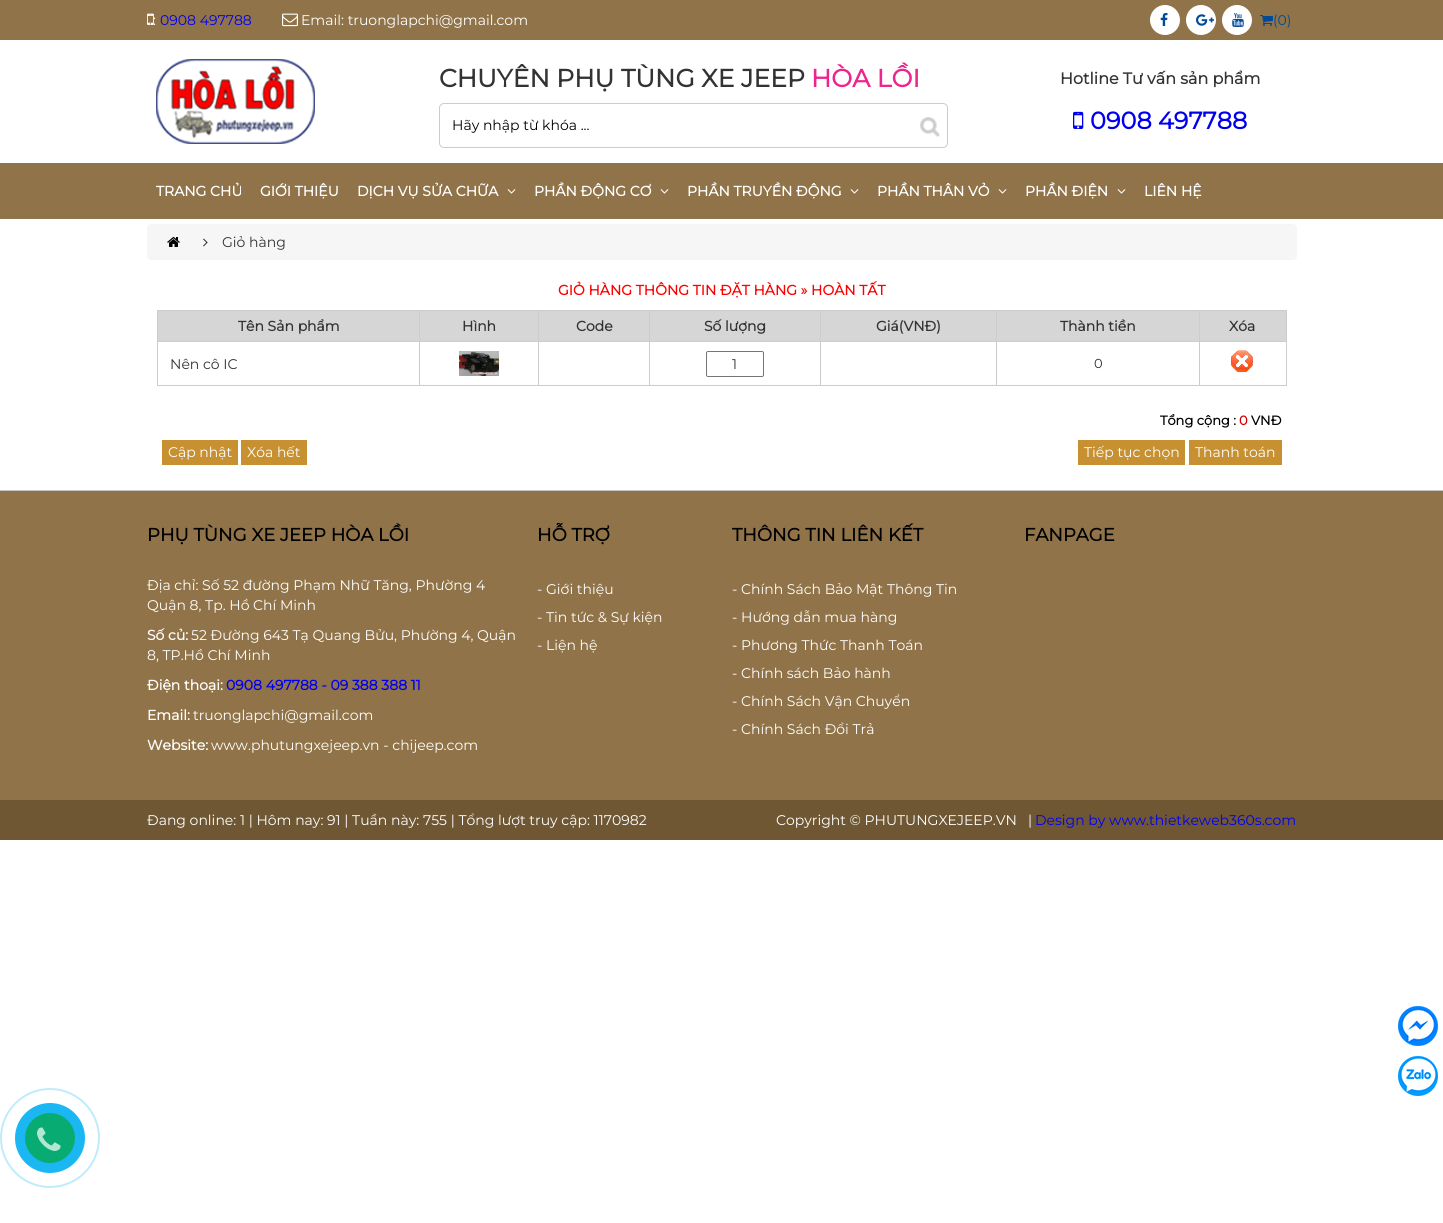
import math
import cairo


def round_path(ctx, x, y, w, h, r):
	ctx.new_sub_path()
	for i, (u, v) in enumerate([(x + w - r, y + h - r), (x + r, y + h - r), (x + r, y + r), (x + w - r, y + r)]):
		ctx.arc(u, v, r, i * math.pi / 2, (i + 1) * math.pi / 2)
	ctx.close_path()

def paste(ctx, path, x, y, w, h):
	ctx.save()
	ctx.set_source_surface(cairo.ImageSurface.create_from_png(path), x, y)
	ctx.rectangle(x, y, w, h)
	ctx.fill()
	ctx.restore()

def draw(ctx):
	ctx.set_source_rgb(1, 1, 1)
	ctx.paint()
	ctx.set_source_rgb(0.565, 0.451, 0.282)
	ctx.rectangle(0, 0, 1443, 40)
	ctx.fill()
	paste(ctx, 'media/1.png', 147, 13, 7, 12)
	ctx.select_font_face('Montserrat Thin')
	ctx.set_font_size(14)
	ctx.set_source_rgb(1, 1, 1)
	ctx.move_to(153, 25)
	ctx.show_text(':')
	ctx.set_source_rgb(0, 0, 0.933)
	ctx.move_to(160, 25)
	ctx.show_text('0908 497788')
	paste(ctx, 'media/2.png', 282, 13, 16, 14)
	ctx.set_source_rgb(1, 1, 1)
	ctx.move_to(301, 25)
	ctx.show_text('Email: truonglapchi@gmail.com')
	ctx.new_path()
	ctx.arc(1165, 20, 15, 0, 2 * math.pi)
	ctx.fill()
	paste(ctx, 'media/3.png', 1160, 13, 8, 13)
	ctx.arc(1201, 20, 15, 0, 2 * math.pi)
	ctx.fill()
	paste(ctx, 'media/4.png', 1196, 14, 18, 12)
	ctx.arc(1237, 20, 15, 0, 2 * math.pi)
	ctx.fill()
	paste(ctx, 'media/5.png', 1232, 13, 12, 14)
	paste(ctx, 'media/6.png', 1260, 15, 13, 11)
	ctx.set_source_rgb(0, 0.294, 0.592)
	ctx.move_to(1273, 25)
	ctx.show_text('(0)')
	paste(ctx, 'media/7.png', 156, 59, 159, 85)
	ctx.select_font_face('Montserrat', cairo.FONT_SLANT_NORMAL, cairo.FONT_WEIGHT_BOLD)
	ctx.set_font_size(25)
	ctx.set_source_rgb(0.2, 0.2, 0.2)
	ctx.move_to(439, 87)
	ctx.show_text('CHUYÊN PHỤ TÙNG XE JEEP')
	ctx.set_source_rgb(0.922, 0.149, 0.561)
	ctx.move_to(811, 87)
	ctx.show_text('HÒA LỒI')
	round_path(ctx, 439.5, 103.5, 508, 44, 4.5)
	ctx.set_source_rgb(0.8, 0.8, 0.8)
	ctx.set_line_width(1)
	ctx.stroke()
	ctx.select_font_face('Montserrat Thin')
	ctx.set_font_size(14)
	ctx.set_source_rgb(0, 0, 0)
	ctx.move_to(452, 130)
	ctx.show_text('Hãy nhập từ khóa ...')
	paste(ctx, 'media/8.png', 920, 117, 20, 20)
	ctx.select_font_face('Montserrat', cairo.FONT_SLANT_NORMAL, cairo.FONT_WEIGHT_BOLD)
	ctx.set_font_size(16)
	ctx.set_source_rgb(0.2, 0.2, 0.2)
	ctx.move_to(1060, 84)
	ctx.show_text('Hotline Tư vấn sản phẩm')
	paste(ctx, 'media/9.png', 1073, 111, 11, 18)
	ctx.set_font_size(24)
	ctx.set_source_rgb(0, 0, 0.933)
	ctx.move_to(1090, 129)
	ctx.show_text('0908 497788')
	ctx.set_source_rgb(0.565, 0.451, 0.282)
	ctx.rectangle(0, 163, 1443, 56)
	ctx.fill()
	ctx.set_font_size(14)
	ctx.set_source_rgb(1, 1, 1)
	for x, y, s in [
		(156, 196, 'TRANG CHỦ'),
		(260, 196, 'GIỚI THIỆU'),
		(357, 196, 'DỊCH VỤ SỬA CHỮA'),
	]:
		ctx.move_to(x, y)
		ctx.show_text(s)
	paste(ctx, 'media/10.png', 507, 189, 9, 5)
	ctx.move_to(534, 196)
	ctx.show_text('PHẦN ĐỘNG CƠ')
	paste(ctx, 'media/10.png', 660, 189, 9, 5)
	ctx.move_to(687, 196)
	ctx.show_text('PHẦN TRUYỀN ĐỘNG')
	paste(ctx, 'media/10.png', 850, 189, 9, 5)
	ctx.move_to(877, 196)
	ctx.show_text('PHẦN THÂN VỎ')
	paste(ctx, 'media/10.png', 998, 189, 9, 5)
	ctx.move_to(1025, 196)
	ctx.show_text('PHẦN ĐIỆN')
	paste(ctx, 'media/10.png', 1117, 189, 9, 5)
	ctx.move_to(1144, 196)
	ctx.show_text('LIÊN HỆ')
	ctx.set_source_rgb(0.961, 0.961, 0.961)
	round_path(ctx, 147, 224, 1150, 36, 4)
	ctx.fill()
	paste(ctx, 'media/11.png', 167, 237, 13, 10)
	paste(ctx, 'media/12.png', 203, 238, 5, 9)
	ctx.select_font_face('Montserrat Thin')
	ctx.set_source_rgb(0.2, 0.2, 0.2)
	ctx.move_to(222, 247)
	ctx.show_text('Giỏ hàng')
	ctx.select_font_face('Montserrat', cairo.FONT_SLANT_NORMAL, cairo.FONT_WEIGHT_BOLD)
	ctx.set_source_rgb(1, 0, 0)
	ctx.move_to(558, 295)
	ctx.show_text('GIỎ HÀNG THÔNG TIN ĐẶT HÀNG » HOÀN TẤT')
	ctx.set_source_rgb(0.839, 0.839, 0.839)
	ctx.rectangle(158, 311, 261, 30)
	ctx.fill()
	ctx.set_source_rgb(0.8, 0.8, 0.8)
	ctx.rectangle(1199, 310, 88, 1)
	ctx.rectangle(1199, 341, 88, 1)
	ctx.rectangle(1286, 341, 1, 45)
	ctx.rectangle(1199, 385, 88, 1)
	ctx.rectangle(1199, 341, 1, 45)
	ctx.rectangle(996, 341, 204, 1)
	ctx.rectangle(1199, 310, 1, 32)
	ctx.rectangle(996, 310, 204, 1)
	ctx.rectangle(996, 385, 204, 1)
	ctx.rectangle(996, 341, 1, 45)
	ctx.rectangle(820, 341, 177, 1)
	ctx.rectangle(996, 310, 1, 32)
	ctx.rectangle(820, 310, 177, 1)
	ctx.rectangle(820, 385, 177, 1)
	ctx.rectangle(820, 341, 1, 45)
	ctx.rectangle(649, 341, 172, 1)
	ctx.rectangle(820, 310, 1, 32)
	ctx.rectangle(649, 310, 172, 1)
	ctx.rectangle(649, 385, 172, 1)
	ctx.rectangle(649, 341, 1, 45)
	ctx.rectangle(538, 341, 112, 1)
	ctx.rectangle(649, 310, 1, 32)
	ctx.rectangle(538, 310, 112, 1)
	ctx.rectangle(538, 385, 112, 1)
	ctx.rectangle(538, 341, 1, 45)
	ctx.rectangle(419, 341, 120, 1)
	ctx.rectangle(538, 310, 1, 32)
	ctx.rectangle(419, 310, 120, 1)
	ctx.rectangle(419, 385, 120, 1)
	ctx.rectangle(419, 341, 1, 45)
	ctx.rectangle(157, 341, 263, 1)
	ctx.rectangle(419, 310, 1, 32)
	ctx.rectangle(157, 310, 263, 1)
	ctx.rectangle(157, 385, 263, 1)
	ctx.rectangle(157, 341, 1, 45)
	ctx.rectangle(157, 310, 1, 32)
	ctx.fill()
	ctx.set_source_rgb(0.2, 0.2, 0.2)
	ctx.move_to(238, 331)
	ctx.show_text('Tên Sản phẩm')
	ctx.set_source_rgb(0.839, 0.839, 0.839)
	ctx.rectangle(420, 311, 118, 30)
	ctx.fill()
	ctx.set_source_rgb(0.2, 0.2, 0.2)
	ctx.move_to(462, 331)
	ctx.show_text('Hình')
	ctx.set_source_rgb(0.839, 0.839, 0.839)
	ctx.rectangle(539, 311, 110, 30)
	ctx.fill()
	ctx.set_source_rgb(0.2, 0.2, 0.2)
	ctx.move_to(576, 331)
	ctx.show_text('Code')
	ctx.set_source_rgb(0.839, 0.839, 0.839)
	ctx.rectangle(650, 311, 170, 30)
	ctx.fill()
	ctx.set_source_rgb(0.2, 0.2, 0.2)
	ctx.move_to(704, 331)
	ctx.show_text('Số lượng')
	ctx.set_source_rgb(0.839, 0.839, 0.839)
	ctx.rectangle(821, 311, 175, 30)
	ctx.fill()
	ctx.set_source_rgb(0.2, 0.2, 0.2)
	ctx.move_to(876, 331)
	ctx.show_text('Giá(VNĐ)')
	ctx.set_source_rgb(0.839, 0.839, 0.839)
	ctx.rectangle(997, 311, 202, 30)
	ctx.fill()
	ctx.set_source_rgb(0.2, 0.2, 0.2)
	ctx.move_to(1060, 331)
	ctx.show_text('Thành tiền')
	ctx.set_source_rgb(0.839, 0.839, 0.839)
	ctx.rectangle(1200, 311, 86, 30)
	ctx.fill()
	ctx.set_source_rgb(0.8, 0.8, 0.8)
	ctx.rectangle(1286, 310, 1, 32)
	ctx.fill()
	ctx.set_source_rgb(0.2, 0.2, 0.2)
	ctx.move_to(1229, 331)
	ctx.show_text('Xóa')
	ctx.select_font_face('Montserrat Thin')
	ctx.move_to(170, 369)
	ctx.show_text('Nên cô IC')
	paste(ctx, 'media/13.png', 459, 351, 40, 25)
	round_path(ctx, 706.5, 351.5, 57, 25, 1.5)
	ctx.set_source_rgb(0.463, 0.463, 0.463)
	ctx.stroke()
	ctx.set_source_rgb(0.2, 0.2, 0.2)
	ctx.move_to(732, 369)
	ctx.show_text('1')
	ctx.set_font_size(13)
	ctx.move_to(1094, 368)
	ctx.show_text('0')
	paste(ctx, 'media/14.png', 1231, 350, 22, 23)
	ctx.select_font_face('Montserrat', cairo.FONT_SLANT_NORMAL, cairo.FONT_WEIGHT_BOLD)
	ctx.set_source_rgb(0, 0, 0)
	ctx.move_to(1160, 425)
	ctx.show_text('Tổng cộng :')
	ctx.set_source_rgb(0.8, 0, 0)
	ctx.move_to(1239, 425)
	ctx.show_text('0')
	ctx.set_source_rgb(0, 0, 0)
	ctx.move_to(1251, 425)
	ctx.show_text('VNĐ')
	ctx.set_source_rgb(0.78, 0.565, 0.188)
	ctx.rectangle(162, 440, 76, 25)
	ctx.fill()
	ctx.select_font_face('Montserrat Thin')
	ctx.set_font_size(14)
	ctx.set_source_rgb(1, 1, 1)
	ctx.move_to(168, 457)
	ctx.show_text('Cập nhật')
	ctx.set_source_rgb(0.78, 0.565, 0.188)
	ctx.rectangle(241, 440, 66, 25)
	ctx.fill()
	ctx.set_source_rgb(1, 1, 1)
	ctx.move_to(247, 457)
	ctx.show_text('Xóa hết')
	ctx.set_source_rgb(0.78, 0.565, 0.188)
	ctx.rectangle(1078, 440, 107, 25)
	ctx.fill()
	ctx.set_source_rgb(1, 1, 1)
	ctx.move_to(1084, 457)
	ctx.show_text('Tiếp tục chọn')
	ctx.set_source_rgb(0.78, 0.565, 0.188)
	ctx.rectangle(1189, 440, 93, 25)
	ctx.fill()
	ctx.set_source_rgb(1, 1, 1)
	ctx.move_to(1195, 457)
	ctx.show_text('Thanh toán')
	ctx.set_source_rgb(0.565, 0.451, 0.282)
	ctx.rectangle(0, 491, 1443, 309)
	ctx.fill()
	ctx.set_source_rgb(0.78, 0.78, 0.78)
	ctx.rectangle(0, 490, 1443, 1)
	ctx.fill()
	ctx.select_font_face('Montserrat', cairo.FONT_SLANT_NORMAL, cairo.FONT_WEIGHT_BOLD)
	ctx.set_font_size(18)
	ctx.set_source_rgb(0, 0, 0)
	ctx.move_to(147, 541)
	ctx.show_text('PHỤ TÙNG XE JEEP HÒA LỒI')
	ctx.select_font_face('Montserrat Thin')
	ctx.set_font_size(14)
	ctx.set_source_rgb(1, 1, 1)
	ctx.move_to(147, 590)
	ctx.show_text('Địa chỉ: Số 52 đường Phạm Nhữ Tăng, Phường 4')
	ctx.move_to(147, 610)
	ctx.show_text('Quận 8, Tp. Hồ Chí Minh')
	ctx.select_font_face('Montserrat', cairo.FONT_SLANT_NORMAL, cairo.FONT_WEIGHT_BOLD)
	ctx.move_to(147, 640)
	ctx.show_text('Số củ:')
	ctx.select_font_face('Montserrat Thin')
	ctx.move_to(191, 640)
	ctx.show_text('52 Đường 643 Tạ Quang Bửu, Phường 4, Quận')
	ctx.move_to(147, 660)
	ctx.show_text('8, TP.Hồ Chí Minh')
	ctx.select_font_face('Montserrat', cairo.FONT_SLANT_NORMAL, cairo.FONT_WEIGHT_BOLD)
	ctx.move_to(147, 690)
	ctx.show_text('Điện thoại:')
	ctx.set_source_rgb(0, 0, 0.933)
	ctx.move_to(226, 690)
	ctx.show_text('0908 497788 - 09 388 388 11')
	ctx.set_source_rgb(1, 1, 1)
	ctx.move_to(147, 720)
	ctx.show_text('Email:')
	ctx.select_font_face('Montserrat Thin')
	ctx.move_to(193, 720)
	ctx.show_text('truonglapchi@gmail.com')
	ctx.select_font_face('Montserrat', cairo.FONT_SLANT_NORMAL, cairo.FONT_WEIGHT_BOLD)
	ctx.move_to(147, 750)
	ctx.show_text('Website:')
	ctx.select_font_face('Montserrat Thin')
	ctx.move_to(211, 750)
	ctx.show_text('www.phutungxejeep.vn - chijeep.com')
	ctx.select_font_face('Montserrat', cairo.FONT_SLANT_NORMAL, cairo.FONT_WEIGHT_BOLD)
	ctx.set_font_size(18)
	ctx.set_source_rgb(0, 0, 0)
	ctx.move_to(537, 541)
	ctx.show_text('HỖ TRỢ')
	ctx.select_font_face('Montserrat Thin')
	ctx.set_font_size(14)
	ctx.set_source_rgb(1, 1, 1)
	for x, y, s in [
		(537, 594, '- Giới thiệu'),
		(537, 622, '- Tin tức & Sự kiện'),
		(537, 650, '- Liện hệ'),
	]:
		ctx.move_to(x, y)
		ctx.show_text(s)
	ctx.select_font_face('Montserrat', cairo.FONT_SLANT_NORMAL, cairo.FONT_WEIGHT_BOLD)
	ctx.set_font_size(18)
	ctx.set_source_rgb(0, 0, 0)
	ctx.move_to(732, 541)
	ctx.show_text('THÔNG TIN LIÊN KẾT')
	ctx.select_font_face('Montserrat Thin')
	ctx.set_font_size(14)
	ctx.set_source_rgb(1, 1, 1)
	for x, y, s in [
		(732, 594, '- Chính Sách Bảo Mật Thông Tin'),
		(732, 622, '- Hướng dẫn mua hàng'),
		(732, 650, '- Phương Thức Thanh Toán'),
		(732, 678, '- Chính sách Bảo hành'),
		(732, 706, '- Chính Sách Vận Chuyển'),
		(732, 734, '- Chính Sách Đổi Trả'),
	]:
		ctx.move_to(x, y)
		ctx.show_text(s)
	ctx.select_font_face('Montserrat', cairo.FONT_SLANT_NORMAL, cairo.FONT_WEIGHT_BOLD)
	ctx.set_font_size(18)
	ctx.set_source_rgb(0, 0, 0)
	ctx.move_to(1024, 541)
	ctx.show_text('FANPAGE')
	ctx.set_source_rgb(0.435, 0.341, 0.2)
	ctx.rectangle(0, 800, 1443, 40)
	ctx.fill()
	ctx.select_font_face('Montserrat Thin')
	ctx.set_font_size(14)
	ctx.set_source_rgb(1, 1, 1)
	ctx.move_to(147, 825)
	ctx.show_text('Đang online: 1 | Hôm nay: 91 | Tuần này: 755 | Tổng lượt truy cập: 1170982')
	ctx.move_to(776, 825)
	ctx.show_text('Copyright © PHUTUNGXEJEEP.VN   |')
	ctx.set_source_rgb(0, 0, 0.933)
	ctx.move_to(1035, 825)
	ctx.show_text('Design by www.thietkeweb360s.com')
	paste(ctx, 'media/15.png', 1398, 1006, 40, 40)
	paste(ctx, 'media/16.png', 1398, 1056, 40, 40)
	ctx.arc(50, 1138, 49, 0, 2 * math.pi)
	ctx.set_source_rgb(0.749, 0.922, 0.988)
	ctx.set_line_width(2)
	ctx.stroke()
	ctx.set_source_rgb(0.102, 0.718, 0.953)
	ctx.arc(50, 1138, 35, 0, 2 * math.pi)
	ctx.fill()
	ctx.set_source_rgb(0.035, 0.675, 0.451)
	ctx.arc(50, 1138, 25, 0, 2 * math.pi)
	ctx.fill()
	paste(ctx, 'media/17.png', 37, 1127, 24, 24)


surface = cairo.ImageSurface(cairo.FORMAT_RGB24, 1443, 1223)
ctx = cairo.Context(surface)
options = cairo.FontOptions()
options.set_hint_metrics(cairo.HINT_METRICS_OFF)
options.set_hint_style(cairo.HINT_STYLE_NONE)
ctx.set_font_options(options)
ctx.set_miter_limit(4)
draw(ctx)
surface.write_to_png('image.png')
